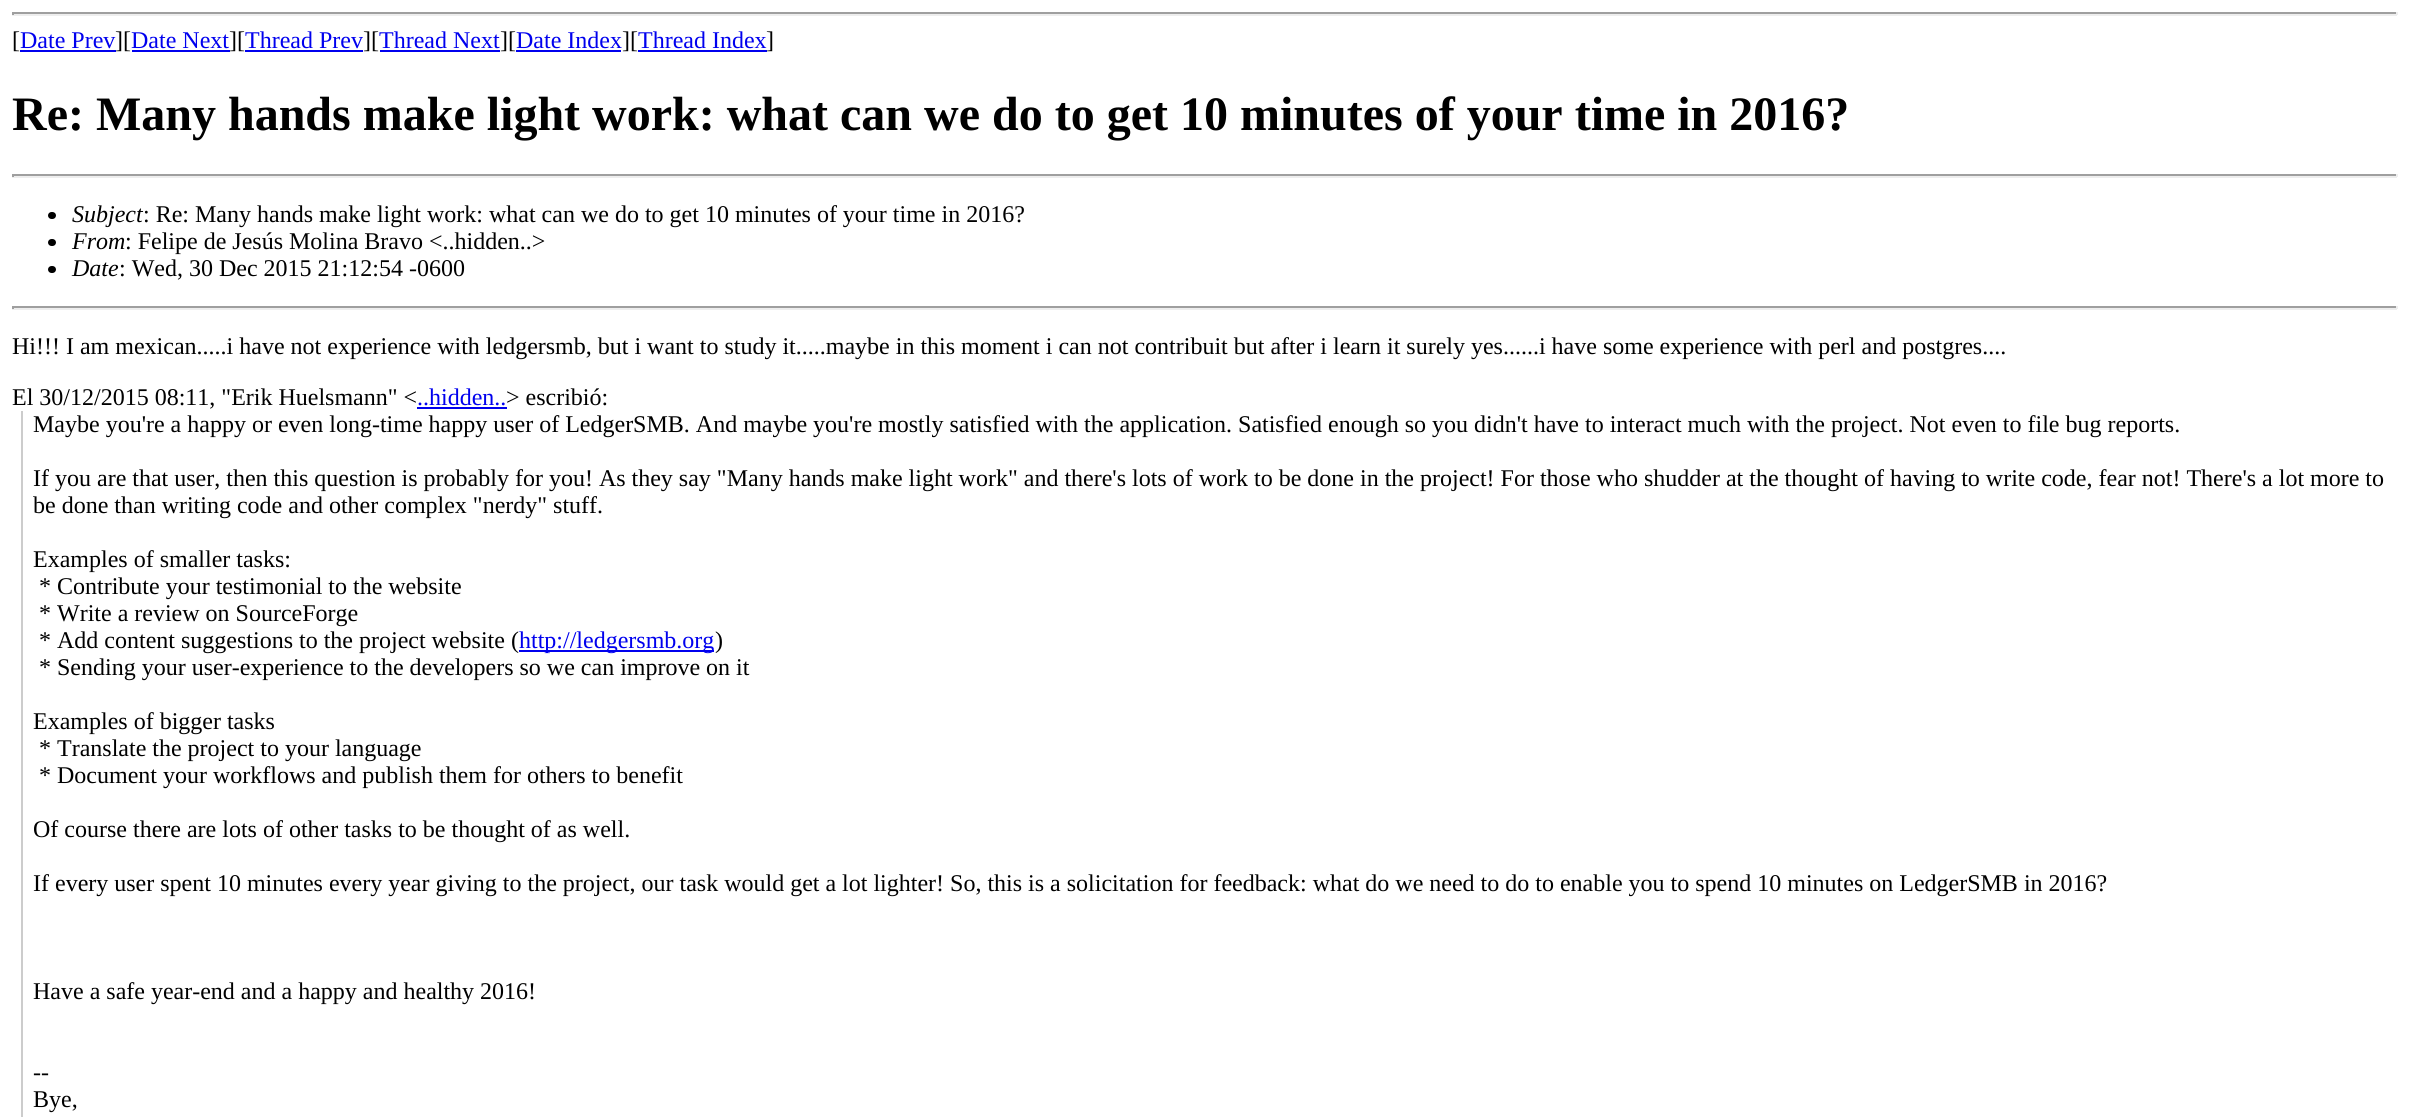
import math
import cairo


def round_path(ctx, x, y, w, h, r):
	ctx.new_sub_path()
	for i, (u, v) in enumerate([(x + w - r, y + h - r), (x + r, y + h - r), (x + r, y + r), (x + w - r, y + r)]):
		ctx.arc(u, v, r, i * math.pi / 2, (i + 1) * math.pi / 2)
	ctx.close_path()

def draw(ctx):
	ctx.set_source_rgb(1, 1, 1)
	ctx.paint()
	ctx.set_source_rgb(0.624, 0.624, 0.624)
	ctx.rectangle(12, 12, 2385, 2)
	ctx.fill()
	ctx.set_source_rgb(0.933, 0.933, 0.933)
	ctx.rectangle(2396, 12, 2, 3)
	ctx.rectangle(12, 14, 2385, 2)
	ctx.fill()
	ctx.set_source_rgb(0.624, 0.624, 0.624)
	ctx.rectangle(12, 12, 2, 3)
	ctx.fill()
	ctx.select_font_face('Liberation Serif')
	ctx.set_font_size(24)
	ctx.set_source_rgb(0, 0, 0)
	ctx.move_to(12, 48)
	ctx.show_text('[')
	ctx.set_source_rgb(0, 0, 0.933)
	ctx.move_to(20, 48)
	ctx.show_text('Date Prev')
	ctx.rectangle(20, 50, 96, 2)
	ctx.fill()
	ctx.set_source_rgb(0, 0, 0)
	ctx.move_to(115, 48)
	ctx.show_text('][')
	ctx.set_source_rgb(0, 0, 0.933)
	ctx.move_to(131, 48)
	ctx.show_text('Date Next')
	ctx.rectangle(132, 50, 98, 2)
	ctx.fill()
	ctx.set_source_rgb(0, 0, 0)
	ctx.move_to(229, 48)
	ctx.show_text('][')
	ctx.set_source_rgb(0, 0, 0.933)
	ctx.move_to(245, 48)
	ctx.show_text('Thread Prev')
	ctx.rectangle(245, 50, 118, 2)
	ctx.fill()
	ctx.set_source_rgb(0, 0, 0)
	ctx.move_to(363, 48)
	ctx.show_text('][')
	ctx.set_source_rgb(0, 0, 0.933)
	ctx.move_to(379, 48)
	ctx.show_text('Thread Next')
	ctx.rectangle(380, 50, 120, 2)
	ctx.fill()
	ctx.set_source_rgb(0, 0, 0)
	ctx.move_to(500, 48)
	ctx.show_text('][')
	ctx.set_source_rgb(0, 0, 0.933)
	ctx.move_to(516, 48)
	ctx.show_text('Date Index')
	ctx.rectangle(516, 50, 105, 2)
	ctx.fill()
	ctx.set_source_rgb(0, 0, 0)
	ctx.move_to(622, 48)
	ctx.show_text('][')
	ctx.set_source_rgb(0, 0, 0.933)
	ctx.move_to(638, 48)
	ctx.show_text('Thread Index')
	ctx.rectangle(638, 50, 129, 2)
	ctx.fill()
	ctx.set_source_rgb(0, 0, 0)
	ctx.move_to(766, 48)
	ctx.show_text(']')
	ctx.select_font_face('Liberation Serif', cairo.FONT_SLANT_NORMAL, cairo.FONT_WEIGHT_BOLD)
	ctx.set_font_size(48)
	ctx.move_to(12, 130)
	ctx.show_text('Re: Many hands make light work: what can we do to get 10 minutes of your time in 2016?')
	ctx.set_source_rgb(0.624, 0.624, 0.624)
	ctx.rectangle(12, 174, 2385, 2)
	ctx.fill()
	ctx.set_source_rgb(0.933, 0.933, 0.933)
	ctx.rectangle(2396, 174, 2, 3)
	ctx.rectangle(12, 176, 2385, 2)
	ctx.fill()
	ctx.set_source_rgb(0.624, 0.624, 0.624)
	ctx.rectangle(12, 174, 2, 3)
	ctx.fill()
	ctx.set_source_rgb(0, 0, 0)
	round_path(ctx, 48, 212, 8, 7, 3.5)
	ctx.fill()
	ctx.select_font_face('Liberation Serif', cairo.FONT_SLANT_ITALIC)
	ctx.set_font_size(24)
	ctx.move_to(72, 222)
	ctx.show_text('Subject')
	ctx.select_font_face('Liberation Serif')
	ctx.move_to(143, 222)
	ctx.show_text(': Re: Many hands make light work: what can we do to get 10 minutes of your time in 2016?')
	round_path(ctx, 48, 239, 8, 7, 3.5)
	ctx.fill()
	ctx.select_font_face('Liberation Serif', cairo.FONT_SLANT_ITALIC)
	ctx.move_to(72, 249)
	ctx.show_text('From')
	ctx.select_font_face('Liberation Serif')
	ctx.move_to(125, 249)
	ctx.show_text(': Felipe de Jesús Molina Bravo <..hidden..>')
	round_path(ctx, 48, 266, 8, 7, 3.5)
	ctx.fill()
	ctx.select_font_face('Liberation Serif', cairo.FONT_SLANT_ITALIC)
	ctx.move_to(72, 276)
	ctx.show_text('Date')
	ctx.select_font_face('Liberation Serif')
	ctx.move_to(119, 276)
	ctx.show_text(': Wed, 30 Dec 2015 21:12:54 -0600')
	ctx.set_source_rgb(0.624, 0.624, 0.624)
	ctx.rectangle(12, 306, 2385, 2)
	ctx.fill()
	ctx.set_source_rgb(0.933, 0.933, 0.933)
	ctx.rectangle(2396, 306, 2, 3)
	ctx.rectangle(12, 308, 2385, 2)
	ctx.fill()
	ctx.set_source_rgb(0.624, 0.624, 0.624)
	ctx.rectangle(12, 306, 2, 3)
	ctx.fill()
	ctx.set_source_rgb(0, 0, 0)
	ctx.move_to(12, 354)
	ctx.show_text('Hi!!! I am mexican.....i have not experience with ledgersmb, but i want to study it.....maybe in this moment i can not contribuit but after i learn it surely yes......i have some experience with perl and postgres....')
	ctx.move_to(12, 405)
	ctx.show_text('El 30/12/2015 08:11, "Erik Huelsmann" <')
	ctx.set_source_rgb(0, 0, 0.933)
	ctx.move_to(417, 405)
	ctx.show_text('..hidden..')
	ctx.rectangle(417, 407, 90, 2)
	ctx.fill()
	ctx.set_source_rgb(0, 0, 0)
	ctx.move_to(506, 405)
	ctx.show_text('> escribió:')
	ctx.set_source_rgb(0.8, 0.8, 0.8)
	ctx.rectangle(21, 411, 2, 706)
	ctx.fill()
	ctx.set_source_rgb(0, 0, 0)
	for x, y, s in [
		(33, 432, 'Maybe you\'re a happy or even long-time happy user of LedgerSMB. And maybe you\'re mostly satisfied with the application. Satisfied enough so you didn\'t have to interact much with the project. Not even to file bug reports.'),
		(33, 486, 'If you are that user, then this question is probably for you! As they say "Many hands make light work" and there\'s lots of work to be done in the project! For those who shudder at the thought of having to write code, fear not! There\'s a lot more to'),
		(33, 513, 'be done than writing code and other complex "nerdy" stuff.'),
		(33, 567, 'Examples of smaller tasks:'),
		(39, 594, '* Contribute your testimonial to the website'),
		(39, 621, '* Write a review on SourceForge'),
		(39, 648, '* Add content suggestions to the project website ('),
	]:
		ctx.move_to(x, y)
		ctx.show_text(s)
	ctx.set_source_rgb(0, 0, 0.933)
	ctx.rectangle(519, 650, 195, 2)
	ctx.fill()
	ctx.move_to(519, 648)
	ctx.show_text('http://ledgersmb.org')
	ctx.set_source_rgb(0, 0, 0)
	for x, y, s in [
		(715, 648, ')'),
		(39, 675, '* Sending your user-experience to the developers so we can improve on it'),
		(33, 729, 'Examples of bigger tasks'),
		(39, 756, '* Translate the project to your language'),
		(39, 783, '* Document your workflows and publish them for others to benefit'),
		(33, 837, 'Of course there are lots of other tasks to be thought of as well.'),
		(33, 891, 'If every user spent 10 minutes every year giving to the project, our task would get a lot lighter! So, this is a solicitation for feedback: what do we need to do to enable you to spend 10 minutes on LedgerSMB in 2016?'),
		(33, 999, 'Have a safe year-end and a happy and healthy 2016!'),
		(33, 1080, '--'),
		(33, 1107, 'Bye,'),
	]:
		ctx.move_to(x, y)
		ctx.show_text(s)


surface = cairo.ImageSurface(cairo.FORMAT_RGB24, 2409, 1117)
ctx = cairo.Context(surface)
options = cairo.FontOptions()
options.set_hint_metrics(cairo.HINT_METRICS_OFF)
options.set_hint_style(cairo.HINT_STYLE_NONE)
ctx.set_font_options(options)
ctx.set_miter_limit(4)
draw(ctx)
surface.write_to_png('image.png')
